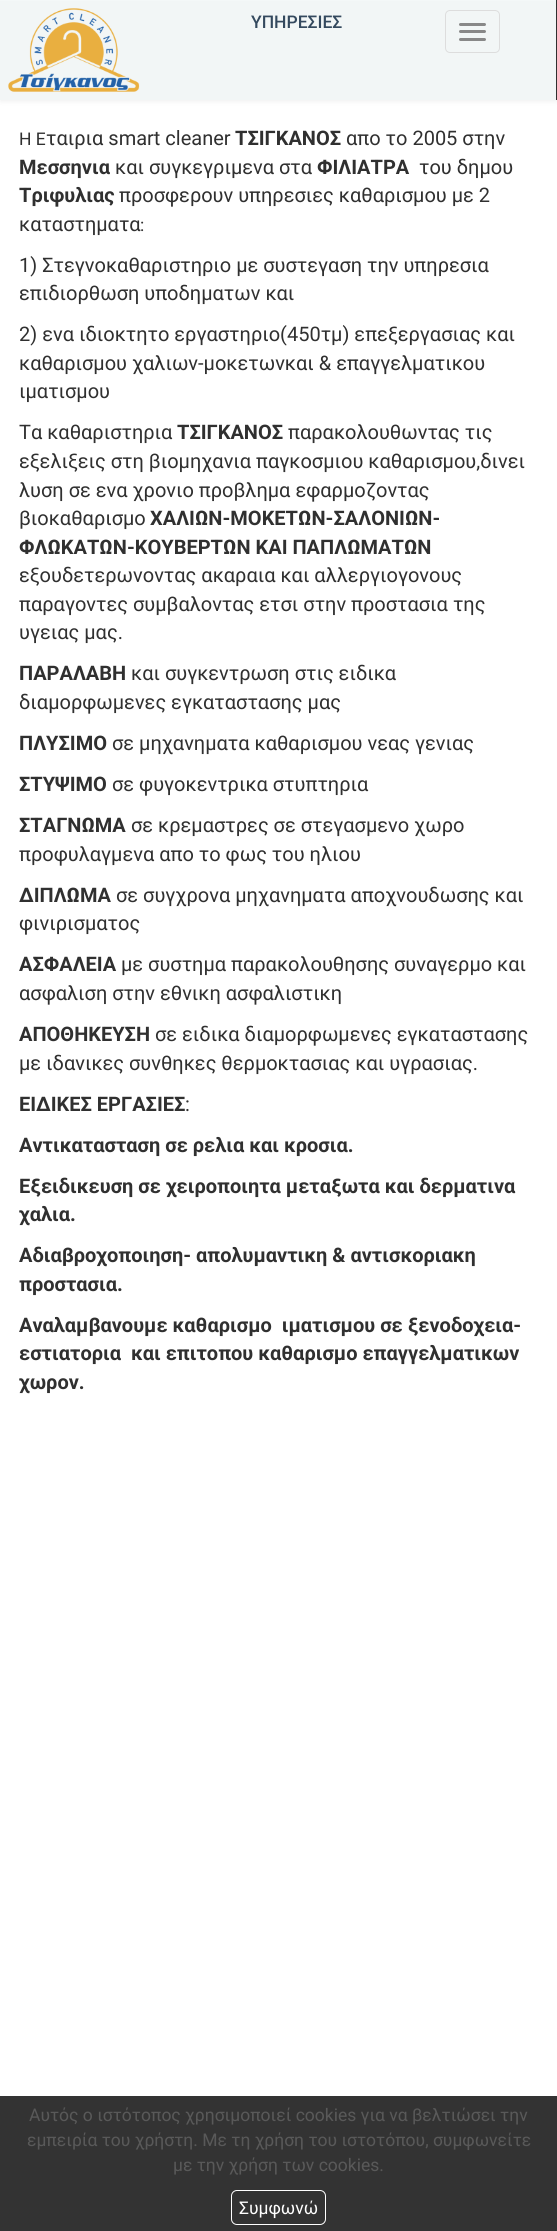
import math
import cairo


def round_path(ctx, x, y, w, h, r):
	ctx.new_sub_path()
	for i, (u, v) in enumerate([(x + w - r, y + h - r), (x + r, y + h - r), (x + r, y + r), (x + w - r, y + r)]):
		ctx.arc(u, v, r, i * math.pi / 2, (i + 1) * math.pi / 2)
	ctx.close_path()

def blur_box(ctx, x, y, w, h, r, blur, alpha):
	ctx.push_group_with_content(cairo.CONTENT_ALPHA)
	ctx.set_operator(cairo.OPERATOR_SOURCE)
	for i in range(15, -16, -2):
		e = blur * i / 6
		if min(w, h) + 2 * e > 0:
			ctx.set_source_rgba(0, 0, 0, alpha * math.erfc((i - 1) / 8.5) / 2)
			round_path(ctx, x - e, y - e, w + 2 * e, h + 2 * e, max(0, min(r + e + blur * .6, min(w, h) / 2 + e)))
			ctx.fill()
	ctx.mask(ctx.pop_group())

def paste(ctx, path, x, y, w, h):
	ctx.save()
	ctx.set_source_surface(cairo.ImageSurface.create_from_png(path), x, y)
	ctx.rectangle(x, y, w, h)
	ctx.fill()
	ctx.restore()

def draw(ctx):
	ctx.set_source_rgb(1, 1, 1)
	ctx.paint()
	ctx.set_source_rgb(0, 0, 0)
	blur_box(ctx, 0, 1, 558, 100, 0, 3, 0.07)
	ctx.set_source_rgb(0.949, 0.961, 0.961)
	ctx.rectangle(0, 1, 556, 99)
	ctx.fill()
	ctx.set_source_rgb(0.957, 0.969, 0.969)
	ctx.rectangle(0, 0, 556, 1)
	ctx.fill()
	ctx.set_source_rgb(0.188, 0.188, 0.188)
	ctx.rectangle(556, 0, 1, 100)
	ctx.fill()
	paste(ctx, 'media/1.png', 8, 8, 132, 84)
	ctx.select_font_face('Roboto Medium')
	ctx.set_font_size(17.5)
	ctx.set_source_rgb(0.204, 0.286, 0.369)
	ctx.move_to(251, 28)
	ctx.show_text('ΥΠΗΡΕΣΙΕΣ')
	round_path(ctx, 445.5, 10.5, 54, 42, 4.5)
	ctx.set_source_rgb(0.867, 0.867, 0.867)
	ctx.set_line_width(1)
	ctx.stroke()
	ctx.set_source_rgb(0.533, 0.533, 0.533)
	round_path(ctx, 459, 23, 27, 3, 1.5)
	ctx.fill()
	round_path(ctx, 459, 30, 27, 3, 1.5)
	ctx.fill()
	round_path(ctx, 459, 38, 27, 3, 1.5)
	ctx.fill()
	ctx.select_font_face('Roboto')
	ctx.set_source_rgb(0.188, 0.188, 0.188)
	ctx.move_to(19, 145)
	ctx.show_text('Η E')
	ctx.set_font_size(20)
	ctx.move_to(46, 145)
	ctx.show_text('ταιρια smart cleaner')
	ctx.select_font_face('Roboto', cairo.FONT_SLANT_NORMAL, cairo.FONT_WEIGHT_BOLD)
	ctx.move_to(235, 145)
	ctx.show_text('ΤΣΙΓΚΑΝΟΣ')
	ctx.select_font_face('Roboto')
	ctx.move_to(346, 145)
	ctx.show_text('απο το 2005 στην')
	ctx.select_font_face('Roboto', cairo.FONT_SLANT_NORMAL, cairo.FONT_WEIGHT_BOLD)
	ctx.move_to(19, 174)
	ctx.show_text('Μεσσηνια')
	ctx.select_font_face('Roboto')
	ctx.move_to(115, 174)
	ctx.show_text('και συγκεγριμενα στα')
	ctx.select_font_face('Roboto', cairo.FONT_SLANT_NORMAL, cairo.FONT_WEIGHT_BOLD)
	ctx.move_to(317, 174)
	ctx.show_text('ΦΙΛΙΑΤΡΑ')
	ctx.select_font_face('Roboto')
	ctx.move_to(419, 174)
	ctx.show_text('του δημου')
	ctx.select_font_face('Roboto', cairo.FONT_SLANT_NORMAL, cairo.FONT_WEIGHT_BOLD)
	ctx.move_to(19, 202)
	ctx.show_text('Τριφυλιας')
	ctx.select_font_face('Roboto')
	ctx.move_to(119, 202)
	ctx.show_text('προσφερουν υπηρεσιες καθαρισμου με 2')
	ctx.move_to(19, 231)
	ctx.show_text('καταστηματα')
	ctx.set_font_size(17.5)
	ctx.move_to(140, 231)
	ctx.show_text(':')
	ctx.set_font_size(20)
	for x, y, s in [
		(19, 272, '1) Στεγνοκαθαριστηριο με συστεγαση την υπηρεσια'),
		(19, 300, 'επιδιορθωση υποδηματων και'),
		(19, 341, '2) ενα ιδιοκτητο εργαστηριο(450τμ) επεξεργασιας και'),
		(19, 370, 'καθαρισμου χαλιων-μοκετωνκαι & επαγγελματικου'),
		(19, 398, 'ιματισμου'),
		(19, 439, 'Τα καθαριστηρια'),
	]:
		ctx.move_to(x, y)
		ctx.show_text(s)
	ctx.select_font_face('Roboto', cairo.FONT_SLANT_NORMAL, cairo.FONT_WEIGHT_BOLD)
	ctx.move_to(177, 439)
	ctx.show_text('ΤΣΙΓΚΑΝΟΣ')
	ctx.select_font_face('Roboto')
	for x, y, s in [
		(288, 439, 'παρακολουθωντας τις'),
		(19, 468, 'εξελιξεις στη βιομηχανια παγκοσμιου καθαρισμου,δινει'),
		(19, 497, 'λυση σε ενα χρονιο προβλημα εφαρμοζοντας'),
		(19, 525, 'βιοκαθαρισμο'),
	]:
		ctx.move_to(x, y)
		ctx.show_text(s)
	ctx.select_font_face('Roboto', cairo.FONT_SLANT_NORMAL, cairo.FONT_WEIGHT_BOLD)
	ctx.move_to(150, 525)
	ctx.show_text('ΧΑΛΙΩΝ-ΜΟΚΕΤΩΝ-ΣΑΛΟΝΙΩΝ-')
	ctx.move_to(19, 554)
	ctx.show_text('ΦΛΩΚΑΤΩΝ-ΚΟΥΒΕΡΤΩΝ ΚΑΙ ΠΑΠΛΩΜΑΤΩΝ')
	ctx.select_font_face('Roboto')
	for x, y, s in [
		(19, 582, 'εξουδετερωνοντας ακαραια και αλλεργιογονους'),
		(19, 611, 'παραγοντες συμβαλοντας ετσι στην προστασια της'),
		(19, 639, 'υγειας μας.'),
	]:
		ctx.move_to(x, y)
		ctx.show_text(s)
	ctx.select_font_face('Roboto', cairo.FONT_SLANT_NORMAL, cairo.FONT_WEIGHT_BOLD)
	ctx.move_to(19, 680)
	ctx.show_text('ΠΑΡΑΛΑΒΗ')
	ctx.select_font_face('Roboto')
	ctx.move_to(131, 680)
	ctx.show_text('και συγκεντρωση στις ειδικα')
	ctx.move_to(19, 709)
	ctx.show_text('διαμορφωμενες εγκαταστασης μας')
	ctx.select_font_face('Roboto', cairo.FONT_SLANT_NORMAL, cairo.FONT_WEIGHT_BOLD)
	ctx.move_to(19, 750)
	ctx.show_text('ΠΛΥΣΙΜΟ')
	ctx.select_font_face('Roboto')
	ctx.move_to(112, 750)
	ctx.show_text('σε μηχανηματα καθαρισμου νεας γενιας')
	ctx.select_font_face('Roboto', cairo.FONT_SLANT_NORMAL, cairo.FONT_WEIGHT_BOLD)
	ctx.move_to(19, 791)
	ctx.show_text('ΣΤΥΨΙΜΟ')
	ctx.select_font_face('Roboto')
	ctx.move_to(112, 791)
	ctx.show_text('σε φυγοκεντρικα στυπτηρια')
	ctx.select_font_face('Roboto', cairo.FONT_SLANT_NORMAL, cairo.FONT_WEIGHT_BOLD)
	ctx.move_to(19, 832)
	ctx.show_text('ΣΤΑΓΝΩΜΑ')
	ctx.select_font_face('Roboto')
	ctx.move_to(131, 832)
	ctx.show_text('σε κρεμαστρες σε στεγασμενο χωρο')
	ctx.move_to(19, 861)
	ctx.show_text('προφυλαγμενα απο το φως του ηλιου')
	ctx.select_font_face('Roboto', cairo.FONT_SLANT_NORMAL, cairo.FONT_WEIGHT_BOLD)
	ctx.move_to(19, 902)
	ctx.show_text('ΔΙΠΛΩΜΑ')
	ctx.select_font_face('Roboto')
	ctx.move_to(116, 902)
	ctx.show_text('σε συγχρονα μηχανηματα αποχνουδωσης και')
	ctx.move_to(19, 930)
	ctx.show_text('φινιρισματος')
	ctx.select_font_face('Roboto', cairo.FONT_SLANT_NORMAL, cairo.FONT_WEIGHT_BOLD)
	ctx.move_to(19, 971)
	ctx.show_text('ΑΣΦΑΛΕΙΑ')
	ctx.select_font_face('Roboto')
	ctx.move_to(121, 971)
	ctx.show_text('με συστημα παρακολουθησης συναγερμο και')
	ctx.move_to(19, 1000)
	ctx.show_text('ασφαλιση στην εθνικη ασφαλιστικη')
	ctx.select_font_face('Roboto', cairo.FONT_SLANT_NORMAL, cairo.FONT_WEIGHT_BOLD)
	ctx.move_to(19, 1041)
	ctx.show_text('ΑΠΟΘΗΚΕΥΣΗ')
	ctx.select_font_face('Roboto')
	ctx.move_to(155, 1041)
	ctx.show_text('σε ειδικα διαμορφωμενες εγκαταστασης')
	ctx.move_to(19, 1070)
	ctx.show_text('με ιδανικες συνθηκες θερμοκτασιας και υγρασιας.')
	ctx.select_font_face('Roboto', cairo.FONT_SLANT_NORMAL, cairo.FONT_WEIGHT_BOLD)
	ctx.move_to(19, 1111)
	ctx.show_text('ΕΙΔΙΚΕΣ ΕΡΓΑΣΙΕΣ')
	ctx.select_font_face('Roboto')
	ctx.move_to(185, 1111)
	ctx.show_text(':')
	ctx.select_font_face('Roboto', cairo.FONT_SLANT_NORMAL, cairo.FONT_WEIGHT_BOLD)
	for x, y, s in [
		(19, 1152, 'Αντικατασταση σε ρελια και κροσια.'),
		(19, 1193, 'Εξειδικευση σε χειροποιητα μεταξωτα και δερματινα'),
		(19, 1221, 'χαλια.'),
		(19, 1262, 'Αδιαβροχοποιηση- απολυμαντικη & αντισκοριακη'),
		(19, 1291, 'προστασια.'),
		(19, 1332, 'Αναλαμβανουμε καθαρισμο  ιματισμου σε ξενοδοχεια-'),
		(19, 1360, 'εστιατορια  και επιτοπου καθαρισμο επαγγελματικων'),
		(19, 1389, 'χωρον.'),
	]:
		ctx.move_to(x, y)
		ctx.show_text(s)
	ctx.set_source_rgb(0.2, 0.2, 0.2)
	ctx.rectangle(0, 2096, 557, 135)
	ctx.fill()
	ctx.select_font_face('Roboto')
	ctx.set_font_size(17.5)
	ctx.set_source_rgb(0.349, 0.349, 0.349)
	for x, y, s in [
		(29, 2121, 'Αυτός ο ιστότοπος χρησιμοποιεί cookies για να βελτιώσει την'),
		(27, 2146, 'εμπειρία του χρήστη. Με τη χρήση του ιστοτόπου, συμφωνείτε'),
		(173, 2171, 'με την χρήση των cookies.'),
	]:
		ctx.move_to(x, y)
		ctx.show_text(s)
	round_path(ctx, 231.5, 2190.5, 94, 34, 5.5)
	ctx.set_source_rgb(1, 1, 1)
	ctx.stroke()
	ctx.move_to(239, 2214)
	ctx.show_text('Συμφωνώ')


surface = cairo.ImageSurface(cairo.FORMAT_RGB24, 557, 2231)
ctx = cairo.Context(surface)
options = cairo.FontOptions()
options.set_hint_metrics(cairo.HINT_METRICS_OFF)
options.set_hint_style(cairo.HINT_STYLE_NONE)
ctx.set_font_options(options)
ctx.set_miter_limit(4)
draw(ctx)
surface.write_to_png('image.png')
